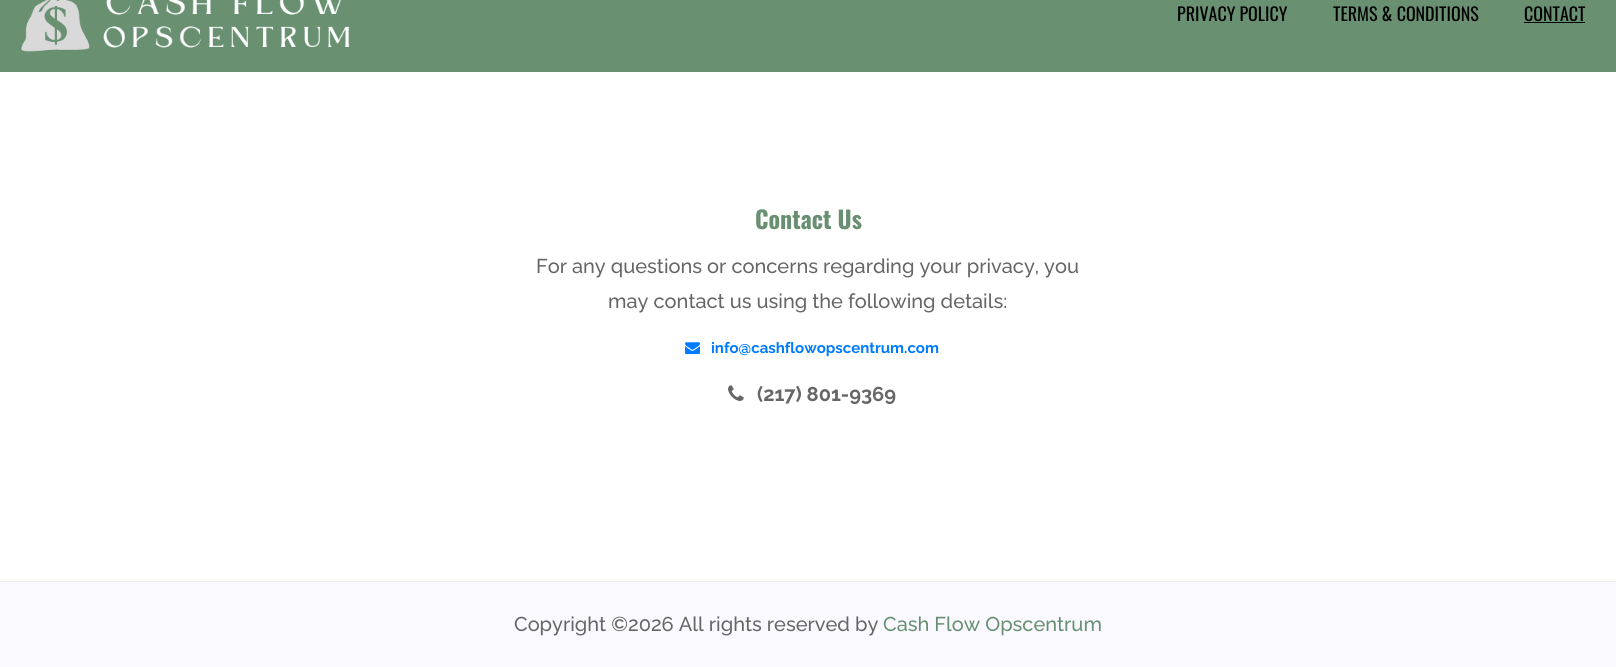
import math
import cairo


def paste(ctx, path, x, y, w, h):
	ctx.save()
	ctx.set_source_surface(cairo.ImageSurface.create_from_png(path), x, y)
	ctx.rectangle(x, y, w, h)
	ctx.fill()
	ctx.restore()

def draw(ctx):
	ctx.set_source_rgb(1, 1, 1)
	ctx.paint()
	ctx.set_source_rgb(0.408, 0.565, 0.443)
	ctx.rectangle(0, 0, 1616, 72)
	ctx.fill()
	paste(ctx, 'media/1.png', 21, 0, 329, 52)
	ctx.select_font_face('Oswald')
	ctx.set_font_size(18)
	ctx.set_source_rgb(0, 0, 0)
	for x, y, s in [
		(1177, 21, 'PRIVACY POLICY'),
		(1333, 21, 'TERMS & CONDITIONS'),
		(1524, 21, 'CONTACT'),
	]:
		ctx.move_to(x, y)
		ctx.show_text(s)
	ctx.rectangle(1524, 22, 61, 1)
	ctx.fill()
	ctx.select_font_face('Oswald', cairo.FONT_SLANT_NORMAL, cairo.FONT_WEIGHT_BOLD)
	ctx.set_font_size(24)
	ctx.set_source_rgb(0.408, 0.561, 0.443)
	ctx.move_to(755, 229)
	ctx.show_text('Contact Us')
	ctx.select_font_face('Raleway Medium')
	ctx.set_font_size(20)
	ctx.set_source_rgb(0.4, 0.4, 0.4)
	ctx.move_to(536, 273)
	ctx.show_text('For any questions or concerns regarding your privacy, you')
	ctx.move_to(608, 308)
	ctx.show_text('may contact us using the following details:')
	paste(ctx, 'media/2.png', 685, 342, 15, 13)
	ctx.select_font_face('Raleway', cairo.FONT_SLANT_NORMAL, cairo.FONT_WEIGHT_BOLD)
	ctx.set_font_size(15)
	ctx.set_source_rgb(0, 0.482, 1)
	ctx.move_to(711, 353)
	ctx.show_text('info@cashflowopscentrum.com')
	paste(ctx, 'media/3.png', 728, 385, 16, 16)
	ctx.set_font_size(20)
	ctx.set_source_rgb(0.4, 0.4, 0.4)
	ctx.move_to(757, 401)
	ctx.show_text('(217) 801-9369')
	ctx.set_source_rgb(0.976, 0.976, 1)
	ctx.rectangle(0, 582, 1616, 85)
	ctx.fill()
	ctx.set_source_rgb(0.933, 0.933, 0.933)
	ctx.rectangle(0, 581, 1616, 1)
	ctx.fill()
	ctx.select_font_face('Raleway Medium')
	ctx.set_source_rgb(0.4, 0.4, 0.4)
	ctx.move_to(514, 631)
	ctx.show_text('Copyright ©2026 All rights reserved by')
	ctx.set_source_rgb(0.408, 0.561, 0.443)
	ctx.move_to(883, 631)
	ctx.show_text('Cash Flow Opscentrum')


surface = cairo.ImageSurface(cairo.FORMAT_RGB24, 1616, 667)
ctx = cairo.Context(surface)
options = cairo.FontOptions()
options.set_hint_metrics(cairo.HINT_METRICS_OFF)
options.set_hint_style(cairo.HINT_STYLE_NONE)
ctx.set_font_options(options)
ctx.set_miter_limit(4)
draw(ctx)
surface.write_to_png('image.png')
